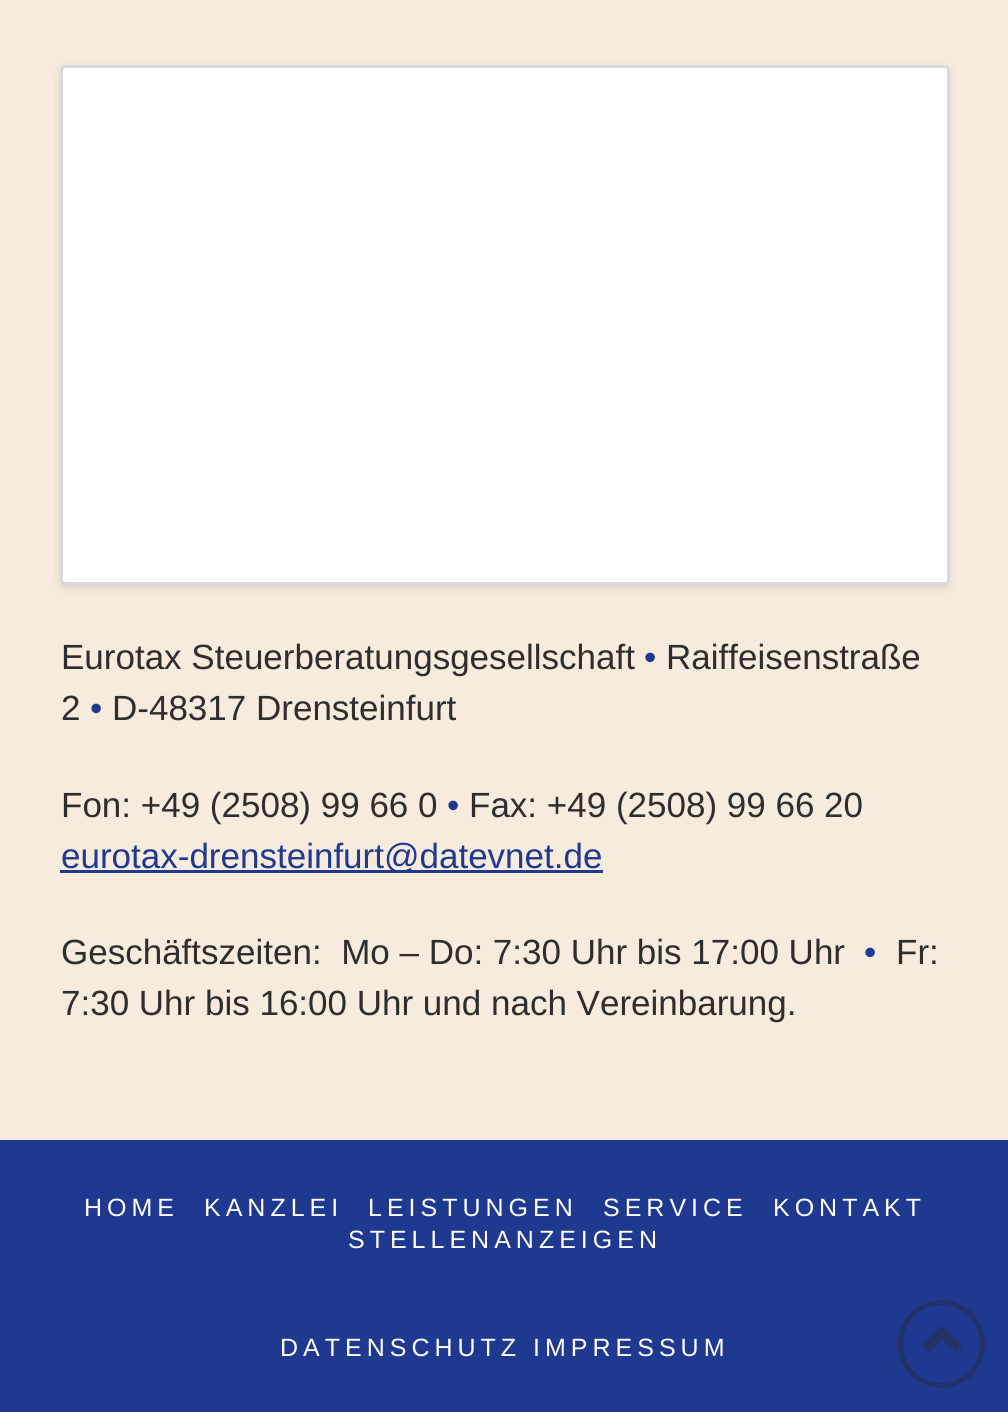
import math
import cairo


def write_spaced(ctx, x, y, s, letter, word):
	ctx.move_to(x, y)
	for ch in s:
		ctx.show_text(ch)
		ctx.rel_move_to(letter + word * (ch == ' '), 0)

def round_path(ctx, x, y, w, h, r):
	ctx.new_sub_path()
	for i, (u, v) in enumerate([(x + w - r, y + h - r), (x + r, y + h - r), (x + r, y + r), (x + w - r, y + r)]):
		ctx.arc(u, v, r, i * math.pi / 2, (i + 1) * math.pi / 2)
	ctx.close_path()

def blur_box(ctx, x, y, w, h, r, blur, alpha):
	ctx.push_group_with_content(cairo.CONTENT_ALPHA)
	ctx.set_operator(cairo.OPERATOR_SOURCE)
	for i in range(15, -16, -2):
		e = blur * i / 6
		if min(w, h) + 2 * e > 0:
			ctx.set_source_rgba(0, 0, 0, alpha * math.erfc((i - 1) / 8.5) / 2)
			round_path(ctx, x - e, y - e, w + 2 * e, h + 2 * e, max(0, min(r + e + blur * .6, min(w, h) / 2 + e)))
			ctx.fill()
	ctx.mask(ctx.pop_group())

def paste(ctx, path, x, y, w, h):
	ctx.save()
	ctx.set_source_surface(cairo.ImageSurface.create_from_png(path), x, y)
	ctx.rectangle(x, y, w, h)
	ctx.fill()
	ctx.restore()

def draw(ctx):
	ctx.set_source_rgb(0.118, 0.224, 0.561)
	ctx.paint()
	ctx.set_source_rgb(0.961, 0.918, 0.863)
	ctx.rectangle(0, 0, 1008, 1140)
	ctx.fill()
	ctx.set_source_rgb(0, 0, 0)
	blur_box(ctx, 60, 68, 890, 520, 5, 4, 0.1)
	ctx.set_source_rgb(1, 1, 1)
	round_path(ctx, 60, 65, 890, 520, 5)
	ctx.fill()
	round_path(ctx, 61.5, 66.5, 887, 517, 3.5)
	ctx.set_source_rgba(0, 0, 0, 0.15)
	ctx.set_line_width(3)
	ctx.stroke()
	ctx.select_font_face('Liberation Sans')
	ctx.set_font_size(35)
	ctx.set_source_rgb(0.18, 0.18, 0.18)
	ctx.move_to(61, 669)
	ctx.show_text('Eurotax Steuerberatungsgesellschaft')
	ctx.set_source_rgb(0.118, 0.224, 0.561)
	ctx.move_to(644, 669)
	ctx.show_text('•')
	ctx.set_source_rgb(0.18, 0.18, 0.18)
	ctx.move_to(666, 669)
	ctx.show_text('Raiffeisenstraße')
	ctx.move_to(61, 720)
	ctx.show_text('2')
	ctx.set_source_rgb(0.118, 0.224, 0.561)
	ctx.move_to(90, 720)
	ctx.show_text('•')
	ctx.set_source_rgb(0.18, 0.18, 0.18)
	ctx.move_to(112, 720)
	ctx.show_text('D-48317 Drensteinfurt')
	ctx.move_to(61, 817)
	ctx.show_text('Fon: +49 (2508) 99 66 0')
	ctx.set_source_rgb(0.118, 0.224, 0.561)
	ctx.move_to(447, 817)
	ctx.show_text('•')
	ctx.set_source_rgb(0.18, 0.18, 0.18)
	ctx.move_to(469, 817)
	ctx.show_text('Fax: +49 (2508) 99 66 20')
	ctx.set_source_rgb(0.118, 0.224, 0.561)
	ctx.rectangle(60, 870, 543, 3)
	ctx.fill()
	ctx.move_to(61, 868)
	ctx.show_text('eurotax-drensteinfurt@datevnet.de')
	ctx.set_source_rgb(0.18, 0.18, 0.18)
	ctx.move_to(61, 964)
	ctx.show_text('Geschäftszeiten:  Mo – Do: 7:30 Uhr bis 17:00 Uhr')
	ctx.set_source_rgb(0.118, 0.224, 0.561)
	ctx.move_to(864, 964)
	ctx.show_text('•')
	ctx.set_source_rgb(0.18, 0.18, 0.18)
	ctx.move_to(896, 964)
	ctx.show_text('Fr:')
	ctx.move_to(61, 1015)
	ctx.show_text('7:30 Uhr bis 16:00 Uhr und nach Vereinbarung.')
	ctx.set_font_size(25)
	ctx.set_source_rgb(1, 1, 1)
	for x, y, s in [
		(84, 1216, 'HOME'),
		(204, 1216, 'KANZLEI'),
		(368, 1216, 'LEISTUNGEN'),
		(603, 1216, 'SERVICE'),
		(773, 1216, 'KONTAKT'),
		(348, 1248, 'STELLENANZEIGEN'),
		(280, 1356, 'DATENSCHUTZ IMPRESSUM'),
	]:
		write_spaced(ctx, x, y, s, 5, 0)
	round_path(ctx, 900.5, 1302.5, 82, 83, 41)
	ctx.set_source_rgb(0.129, 0.196, 0.408)
	ctx.set_line_width(5)
	ctx.stroke()
	paste(ctx, 'media/1.png', 922, 1326, 40, 26)


surface = cairo.ImageSurface(cairo.FORMAT_RGB24, 1008, 1412)
ctx = cairo.Context(surface)
options = cairo.FontOptions()
options.set_hint_metrics(cairo.HINT_METRICS_OFF)
options.set_hint_style(cairo.HINT_STYLE_NONE)
ctx.set_font_options(options)
ctx.set_miter_limit(4)
draw(ctx)
surface.write_to_png('image.png')
